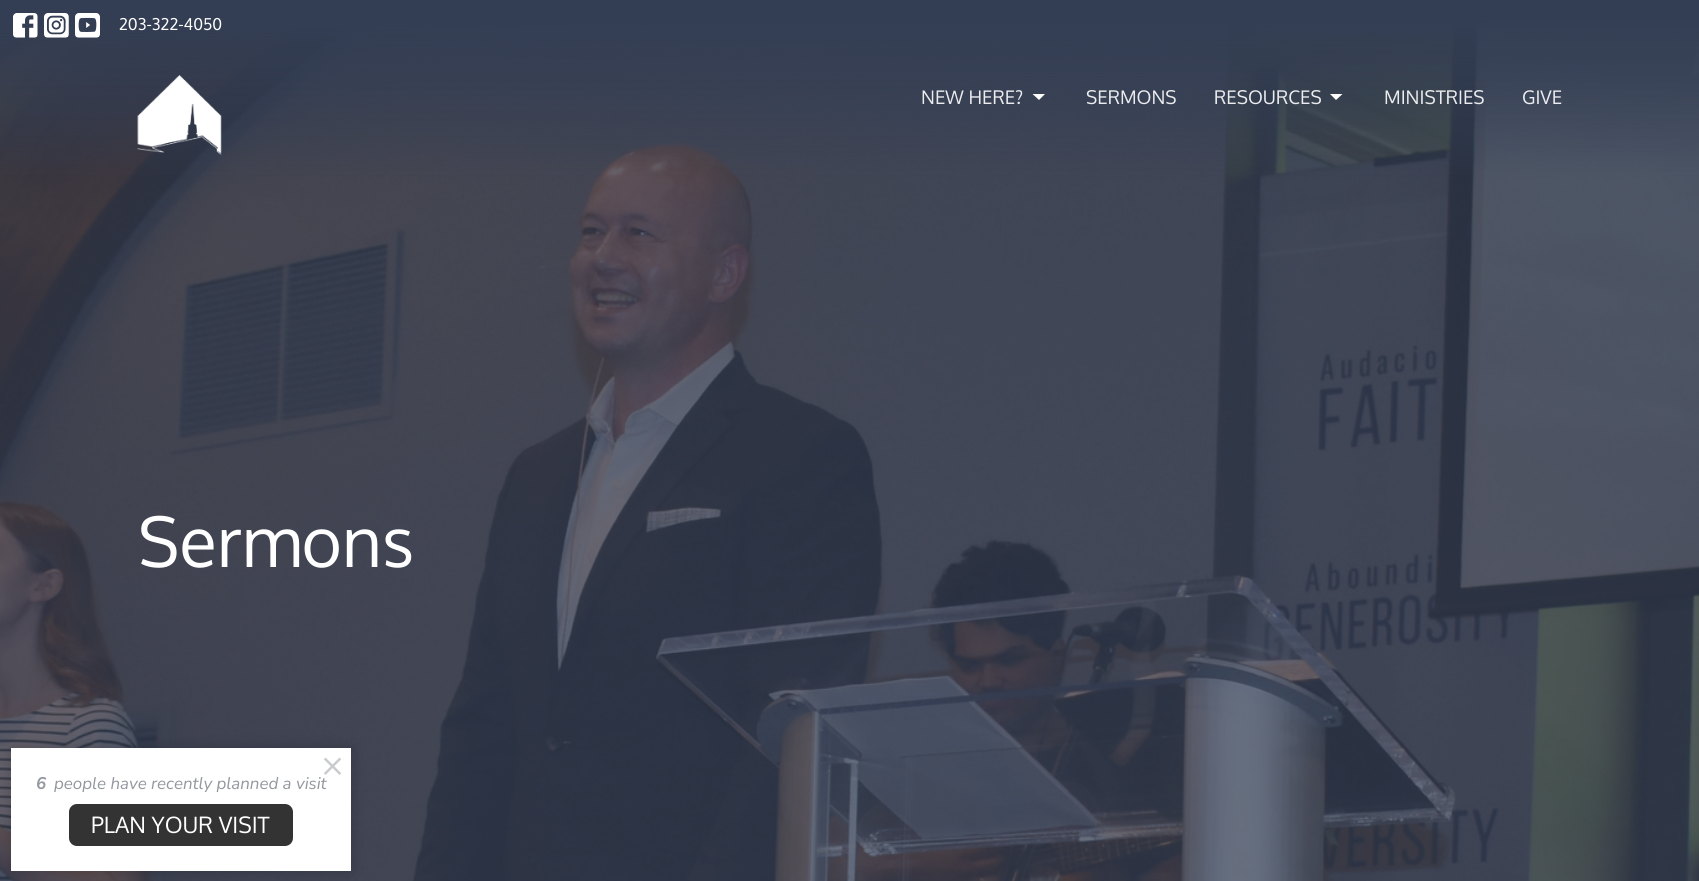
import math
import cairo


def round_path(ctx, x, y, w, h, r):
	ctx.new_sub_path()
	for i, (u, v) in enumerate([(x + w - r, y + h - r), (x + r, y + h - r), (x + r, y + r), (x + w - r, y + r)]):
		ctx.arc(u, v, r, i * math.pi / 2, (i + 1) * math.pi / 2)
	ctx.close_path()

def blur_box(ctx, x, y, w, h, r, blur, alpha):
	ctx.push_group_with_content(cairo.CONTENT_ALPHA)
	ctx.set_operator(cairo.OPERATOR_SOURCE)
	for i in range(15, -16, -2):
		e = blur * i / 6
		if min(w, h) + 2 * e > 0:
			ctx.set_source_rgba(0, 0, 0, alpha * math.erfc((i - 1) / 8.5) / 2)
			round_path(ctx, x - e, y - e, w + 2 * e, h + 2 * e, max(0, min(r + e + blur * .6, min(w, h) / 2 + e)))
			ctx.fill()
	ctx.mask(ctx.pop_group())

def paste(ctx, path, x, y, w, h):
	ctx.save()
	ctx.set_source_surface(cairo.ImageSurface.create_from_png(path), x, y)
	ctx.rectangle(x, y, w, h)
	ctx.fill()
	ctx.restore()

def draw(ctx):
	ctx.set_source_rgb(1, 1, 1)
	ctx.paint()
	paste(ctx, 'media/5.png', 0, 0, 1699, 881)
	paste(ctx, 'media/1.png', 13, 13, 25, 25)
	paste(ctx, 'media/2.png', 44, 13, 25, 25)
	paste(ctx, 'media/3.png', 75, 13, 25, 25)
	ctx.select_font_face('Oxygen')
	ctx.set_font_size(16.25)
	ctx.set_source_rgb(1, 1, 1)
	ctx.move_to(119, 30)
	ctx.show_text('203-322-4050')
	paste(ctx, 'media/4.png', 137, 75, 85, 80)
	ctx.set_font_size(18.75)
	ctx.set_source_rgb(0.922, 0.925, 0.933)
	ctx.move_to(921, 104)
	ctx.show_text('NEW HERE?')
	ctx.set_source_rgb(1, 1, 1)
	ctx.new_path()
	ctx.move_to(1032.5, 94)
	ctx.line_to(1039, 100)
	ctx.line_to(1045, 94)
	ctx.close_path()
	ctx.fill()
	ctx.set_source_rgb(0.922, 0.925, 0.933)
	ctx.move_to(1086, 104)
	ctx.show_text('SERMONS')
	ctx.move_to(1214, 104)
	ctx.show_text('RESOURCES')
	ctx.set_source_rgb(1, 1, 1)
	ctx.new_path()
	ctx.move_to(1330, 94)
	ctx.line_to(1336, 100)
	ctx.line_to(1342.5, 94)
	ctx.close_path()
	ctx.fill()
	ctx.set_source_rgb(0.922, 0.925, 0.933)
	ctx.move_to(1384, 104)
	ctx.show_text('MINISTRIES')
	ctx.move_to(1522, 104)
	ctx.show_text('GIVE')
	ctx.set_font_size(69)
	ctx.set_source_rgb(1, 1, 1)
	ctx.move_to(138, 567)
	ctx.show_text('Sermons')
	ctx.set_source_rgb(0, 0, 0)
	blur_box(ctx, 11, 748, 340, 123, 0, 7, 0.2)
	ctx.set_source_rgb(1, 1, 1)
	ctx.rectangle(11, 748, 340, 123)
	ctx.fill()
	paste(ctx, 'media/6.png', 324, 757, 17, 18)
	ctx.select_font_face('Nunito Sans', cairo.FONT_SLANT_ITALIC, cairo.FONT_WEIGHT_BOLD)
	ctx.set_font_size(16.9)
	ctx.set_source_rgb(0.576, 0.592, 0.62)
	ctx.move_to(36, 789)
	ctx.show_text('6')
	ctx.select_font_face('Nunito Sans', cairo.FONT_SLANT_ITALIC)
	ctx.move_to(54, 789)
	ctx.show_text('people have recently planned a visit')
	ctx.set_source_rgb(0.2, 0.2, 0.2)
	round_path(ctx, 69, 804, 224, 42, 8)
	ctx.fill()
	ctx.select_font_face('Oxygen')
	ctx.set_font_size(22.5)
	ctx.set_source_rgb(1, 1, 1)
	ctx.move_to(91, 833)
	ctx.show_text('PLAN YOUR VISIT')


surface = cairo.ImageSurface(cairo.FORMAT_RGB24, 1699, 881)
ctx = cairo.Context(surface)
options = cairo.FontOptions()
options.set_hint_metrics(cairo.HINT_METRICS_OFF)
options.set_hint_style(cairo.HINT_STYLE_NONE)
ctx.set_font_options(options)
ctx.set_miter_limit(4)
draw(ctx)
surface.write_to_png('image.png')
